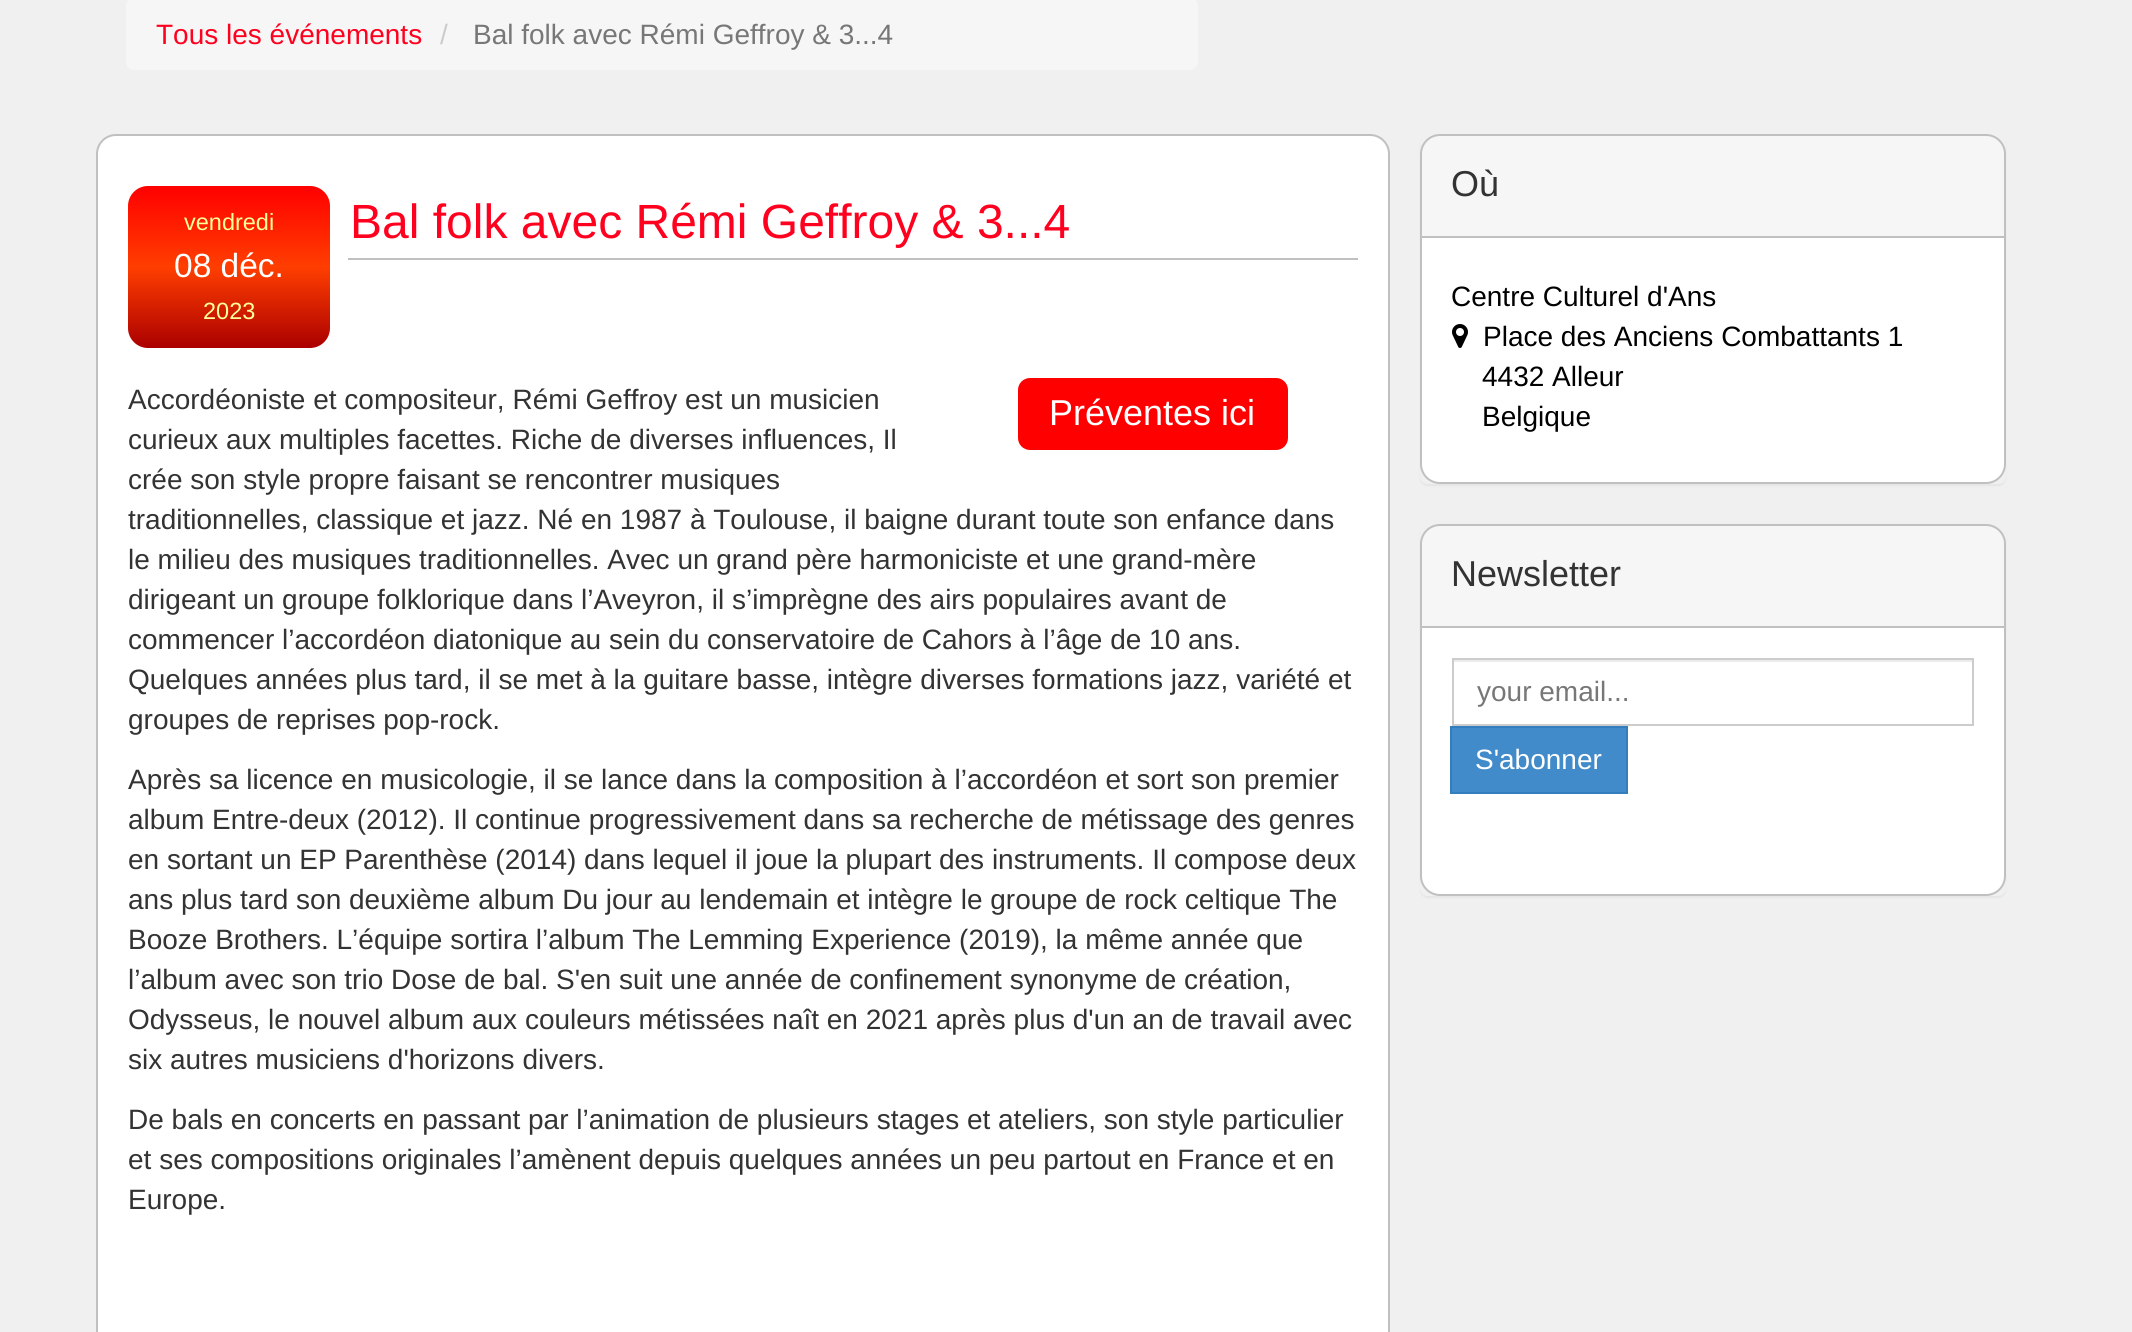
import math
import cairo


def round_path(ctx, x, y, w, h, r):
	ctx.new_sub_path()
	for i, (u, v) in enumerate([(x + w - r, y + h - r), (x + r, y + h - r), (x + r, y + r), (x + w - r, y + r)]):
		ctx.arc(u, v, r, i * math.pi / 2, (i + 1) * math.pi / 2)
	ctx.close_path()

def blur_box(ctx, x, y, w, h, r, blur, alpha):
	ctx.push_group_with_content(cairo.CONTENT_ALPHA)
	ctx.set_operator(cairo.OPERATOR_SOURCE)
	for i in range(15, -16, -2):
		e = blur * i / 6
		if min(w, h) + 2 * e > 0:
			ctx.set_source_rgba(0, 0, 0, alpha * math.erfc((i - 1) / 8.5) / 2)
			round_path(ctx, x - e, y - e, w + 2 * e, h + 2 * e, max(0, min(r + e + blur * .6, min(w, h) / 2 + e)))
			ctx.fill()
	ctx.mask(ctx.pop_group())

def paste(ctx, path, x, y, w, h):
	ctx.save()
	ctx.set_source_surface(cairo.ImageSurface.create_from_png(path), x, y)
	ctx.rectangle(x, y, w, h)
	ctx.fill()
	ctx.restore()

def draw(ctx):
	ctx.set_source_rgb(0.941, 0.941, 0.941)
	ctx.paint()
	ctx.set_source_rgb(0.961, 0.961, 0.961)
	round_path(ctx, 126, -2, 1072, 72, 8)
	ctx.fill()
	ctx.select_font_face('Liberation Sans')
	ctx.set_font_size(28)
	ctx.set_source_rgb(1, 0, 0.118)
	ctx.move_to(156, 44)
	ctx.show_text('Tous les événements')
	ctx.set_source_rgb(0.8, 0.8, 0.8)
	ctx.move_to(440, 44)
	ctx.show_text('/')
	ctx.set_source_rgb(0.467, 0.467, 0.467)
	ctx.move_to(473, 44)
	ctx.show_text('Bal folk avec Rémi Geffroy & 3...4')
	ctx.set_source_rgb(1, 1, 1)
	round_path(ctx, 97, 135, 1292, 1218, 19)
	ctx.fill_preserve()
	ctx.set_source_rgb(0.753, 0.753, 0.753)
	ctx.stroke()
	gradient = cairo.LinearGradient(229, 186, 229, 348)
	gradient.add_color_stop_rgba(0, 1, 0, 0, 1)
	gradient.add_color_stop_rgba(0.5, 1, 0.243, 0, 1)
	gradient.add_color_stop_rgba(1, 0.667, 0, 0, 1)
	ctx.set_source(gradient)
	round_path(ctx, 128, 186, 202, 162, 20)
	ctx.fill()
	ctx.set_font_size(23.5)
	ctx.set_source_rgb(1, 1, 0.6)
	ctx.move_to(184, 230)
	ctx.show_text('vendredi')
	ctx.set_font_size(33.5)
	ctx.set_source_rgb(1, 1, 1)
	ctx.move_to(174, 277)
	ctx.show_text('08 déc.')
	ctx.set_font_size(23.5)
	ctx.set_source_rgb(1, 1, 0.6)
	ctx.move_to(203, 319)
	ctx.show_text('2023')
	ctx.set_source_rgb(0.753, 0.753, 0.753)
	ctx.rectangle(348, 258, 1010, 2)
	ctx.fill()
	ctx.set_font_size(48)
	ctx.set_source_rgb(1, 0, 0.118)
	ctx.move_to(350, 238)
	ctx.show_text('Bal folk avec Rémi Geffroy & 3...4')
	ctx.set_font_size(28)
	ctx.set_source_rgb(0.2, 0.2, 0.2)
	for x, y, s in [
		(128, 409, 'Accordéoniste et compositeur, Rémi Geffroy est un musicien'),
		(128, 449, 'curieux aux multiples facettes. Riche de diverses influences, Il'),
		(128, 489, 'crée son style propre faisant se rencontrer musiques'),
		(128, 529, 'traditionnelles, classique et jazz. Né en 1987 à Toulouse, il baigne durant toute son enfance dans'),
		(128, 569, 'le milieu des musiques traditionnelles. Avec un grand père harmoniciste et une grand-mère'),
		(128, 609, 'dirigeant un groupe folklorique dans l’Aveyron, il s’imprègne des airs populaires avant de'),
		(128, 649, 'commencer l’accordéon diatonique au sein du conservatoire de Cahors à l’âge de 10 ans.'),
		(128, 689, 'Quelques années plus tard, il se met à la guitare basse, intègre diverses formations jazz, variété et'),
		(128, 729, 'groupes de reprises pop-rock.'),
	]:
		ctx.move_to(x, y)
		ctx.show_text(s)
	ctx.set_source_rgb(1, 0, 0)
	round_path(ctx, 1018, 378, 270, 72, 12)
	ctx.fill()
	ctx.set_font_size(36)
	ctx.set_source_rgb(1, 1, 1)
	ctx.move_to(1049, 425)
	ctx.show_text('Préventes ici')
	ctx.set_font_size(28)
	ctx.set_source_rgb(0.2, 0.2, 0.2)
	for x, y, s in [
		(128, 789, 'Après sa licence en musicologie, il se lance dans la composition à l’accordéon et sort son premier'),
		(128, 829, 'album Entre-deux (2012). Il continue progressivement dans sa recherche de métissage des genres'),
		(128, 869, 'en sortant un EP Parenthèse (2014) dans lequel il joue la plupart des instruments. Il compose deux'),
		(128, 909, 'ans plus tard son deuxième album Du jour au lendemain et intègre le groupe de rock celtique The'),
		(128, 949, 'Booze Brothers. L’équipe sortira l’album The Lemming Experience (2019), la même année que'),
		(128, 989, 'l’album avec son trio Dose de bal. S\'en suit une année de confinement synonyme de création,'),
		(128, 1029, 'Odysseus, le nouvel album aux couleurs métissées naît en 2021 après plus d\'un an de travail avec'),
		(128, 1069, 'six autres musiciens d\'horizons divers.'),
		(128, 1129, 'De bals en concerts en passant par l’animation de plusieurs stages et ateliers, son style particulier'),
		(128, 1169, 'et ses compositions originales l’amènent depuis quelques années un peu partout en France et en'),
		(128, 1209, 'Europe.'),
	]:
		ctx.move_to(x, y)
		ctx.show_text(s)
	ctx.save()
	ctx.set_fill_rule(cairo.FILL_RULE_EVEN_ODD)
	ctx.new_path()
	ctx.move_to(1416, 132)
	ctx.line_to(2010, 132)
	ctx.line_to(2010, 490)
	ctx.line_to(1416, 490)
	ctx.close_path()
	ctx.move_to(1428, 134)
	ctx.line_to(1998, 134)
	ctx.curve_to(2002.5, 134, 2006, 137.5, 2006, 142)
	ctx.line_to(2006, 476)
	ctx.curve_to(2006, 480.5, 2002.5, 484, 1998, 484)
	ctx.line_to(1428, 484)
	ctx.curve_to(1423.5, 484, 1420, 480.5, 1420, 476)
	ctx.line_to(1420, 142)
	ctx.curve_to(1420, 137.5, 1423.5, 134, 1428, 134)
	ctx.close_path()
	ctx.clip()
	ctx.set_source_rgb(0, 0, 0)
	blur_box(ctx, 1420, 136, 586, 350, 8, 1, 0.05)
	ctx.restore()
	ctx.set_source_rgb(0.961, 0.961, 0.961)
	ctx.new_path()
	ctx.move_to(1440, 135)
	ctx.line_to(1986, 135)
	ctx.curve_to(1996.5, 135, 2005, 143.5, 2005, 154)
	ctx.line_to(2005, 237)
	ctx.line_to(1421, 237)
	ctx.line_to(1421, 154)
	ctx.curve_to(1421, 143.5, 1429.5, 135, 1440, 135)
	ctx.close_path()
	ctx.fill_preserve()
	ctx.set_source_rgb(0.753, 0.753, 0.753)
	ctx.stroke()
	ctx.set_font_size(36)
	ctx.set_source_rgb(0.2, 0.2, 0.2)
	ctx.move_to(1451, 196)
	ctx.show_text('Où')
	ctx.set_source_rgb(1, 1, 1)
	ctx.new_path()
	ctx.move_to(1421, 237)
	ctx.line_to(2005, 237)
	ctx.line_to(2005, 464)
	ctx.curve_to(2005, 474.5, 1996.5, 483, 1986, 483)
	ctx.line_to(1440, 483)
	ctx.curve_to(1429.5, 483, 1421, 474.5, 1421, 464)
	ctx.close_path()
	ctx.fill_preserve()
	ctx.set_source_rgb(0.753, 0.753, 0.753)
	ctx.stroke()
	ctx.set_font_size(28)
	ctx.set_source_rgb(0, 0, 0)
	ctx.move_to(1451, 306)
	ctx.show_text('Centre Culturel d\'Ans')
	paste(ctx, 'media/1.png', 1452, 324, 16, 24)
	for x, y, s in [
		(1483, 346, 'Place des Anciens Combattants 1'),
		(1482, 386, '4432 Alleur'),
		(1482, 426, 'Belgique'),
	]:
		ctx.move_to(x, y)
		ctx.show_text(s)
	ctx.save()
	ctx.set_fill_rule(cairo.FILL_RULE_EVEN_ODD)
	ctx.new_path()
	ctx.move_to(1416, 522)
	ctx.line_to(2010, 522)
	ctx.line_to(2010, 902)
	ctx.line_to(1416, 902)
	ctx.close_path()
	ctx.move_to(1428, 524)
	ctx.line_to(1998, 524)
	ctx.curve_to(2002.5, 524, 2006, 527.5, 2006, 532)
	ctx.line_to(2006, 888)
	ctx.curve_to(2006, 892.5, 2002.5, 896, 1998, 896)
	ctx.line_to(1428, 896)
	ctx.curve_to(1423.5, 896, 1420, 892.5, 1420, 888)
	ctx.line_to(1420, 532)
	ctx.curve_to(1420, 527.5, 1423.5, 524, 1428, 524)
	ctx.close_path()
	ctx.clip()
	ctx.set_source_rgb(0, 0, 0)
	blur_box(ctx, 1420, 526, 586, 372, 8, 1, 0.05)
	ctx.restore()
	ctx.set_source_rgb(0.961, 0.961, 0.961)
	ctx.new_path()
	ctx.move_to(1440, 525)
	ctx.line_to(1986, 525)
	ctx.curve_to(1996.5, 525, 2005, 533.5, 2005, 544)
	ctx.line_to(2005, 627)
	ctx.line_to(1421, 627)
	ctx.line_to(1421, 544)
	ctx.curve_to(1421, 533.5, 1429.5, 525, 1440, 525)
	ctx.close_path()
	ctx.fill_preserve()
	ctx.set_source_rgb(0.753, 0.753, 0.753)
	ctx.stroke()
	ctx.set_font_size(36)
	ctx.set_source_rgb(0.2, 0.2, 0.2)
	ctx.move_to(1451, 586)
	ctx.show_text('Newsletter')
	ctx.set_source_rgb(1, 1, 1)
	ctx.new_path()
	ctx.move_to(1421, 627)
	ctx.line_to(2005, 627)
	ctx.line_to(2005, 876)
	ctx.curve_to(2005, 886.5, 1996.5, 895, 1986, 895)
	ctx.line_to(1440, 895)
	ctx.curve_to(1429.5, 895, 1421, 886.5, 1421, 876)
	ctx.close_path()
	ctx.fill_preserve()
	ctx.set_source_rgb(0.753, 0.753, 0.753)
	ctx.stroke()
	ctx.set_source_rgb(0.925, 0.925, 0.925)
	ctx.rectangle(1454, 660, 518, 2)
	ctx.fill()
	ctx.rectangle(1453, 659, 520, 66)
	ctx.set_source_rgb(0.8, 0.8, 0.8)
	ctx.stroke()
	ctx.set_font_size(28)
	ctx.set_source_rgb(0.467, 0.467, 0.467)
	ctx.move_to(1477, 701)
	ctx.show_text('your email...')
	ctx.set_source_rgb(0.259, 0.545, 0.792)
	ctx.rectangle(1451, 727, 176, 66)
	ctx.fill_preserve()
	ctx.set_source_rgb(0.208, 0.494, 0.741)
	ctx.stroke()
	ctx.set_source_rgb(1, 1, 1)
	ctx.move_to(1475, 769)
	ctx.show_text('S\'abonner')


surface = cairo.ImageSurface(cairo.FORMAT_RGB24, 2132, 1332)
ctx = cairo.Context(surface)
options = cairo.FontOptions()
options.set_hint_metrics(cairo.HINT_METRICS_OFF)
options.set_hint_style(cairo.HINT_STYLE_NONE)
ctx.set_font_options(options)
ctx.set_miter_limit(4)
draw(ctx)
surface.write_to_png('image.png')
